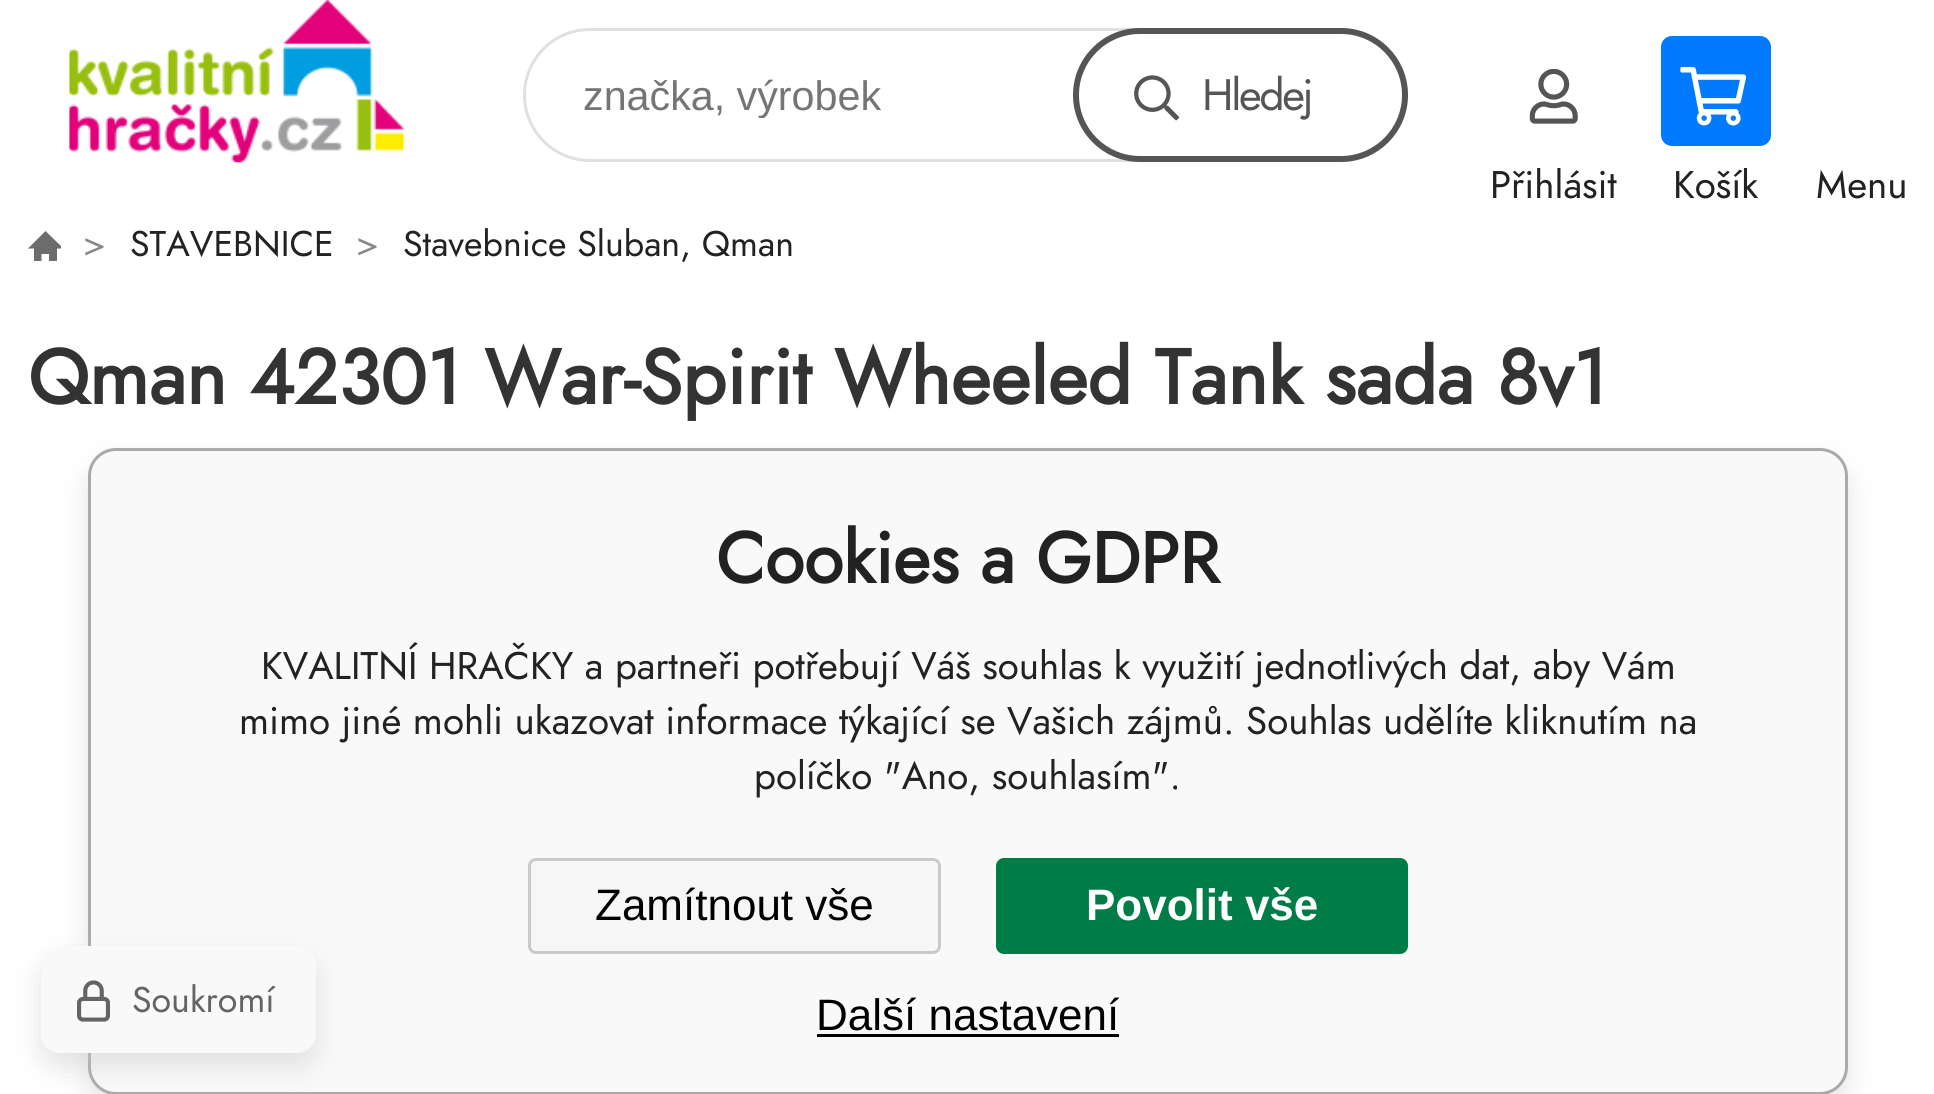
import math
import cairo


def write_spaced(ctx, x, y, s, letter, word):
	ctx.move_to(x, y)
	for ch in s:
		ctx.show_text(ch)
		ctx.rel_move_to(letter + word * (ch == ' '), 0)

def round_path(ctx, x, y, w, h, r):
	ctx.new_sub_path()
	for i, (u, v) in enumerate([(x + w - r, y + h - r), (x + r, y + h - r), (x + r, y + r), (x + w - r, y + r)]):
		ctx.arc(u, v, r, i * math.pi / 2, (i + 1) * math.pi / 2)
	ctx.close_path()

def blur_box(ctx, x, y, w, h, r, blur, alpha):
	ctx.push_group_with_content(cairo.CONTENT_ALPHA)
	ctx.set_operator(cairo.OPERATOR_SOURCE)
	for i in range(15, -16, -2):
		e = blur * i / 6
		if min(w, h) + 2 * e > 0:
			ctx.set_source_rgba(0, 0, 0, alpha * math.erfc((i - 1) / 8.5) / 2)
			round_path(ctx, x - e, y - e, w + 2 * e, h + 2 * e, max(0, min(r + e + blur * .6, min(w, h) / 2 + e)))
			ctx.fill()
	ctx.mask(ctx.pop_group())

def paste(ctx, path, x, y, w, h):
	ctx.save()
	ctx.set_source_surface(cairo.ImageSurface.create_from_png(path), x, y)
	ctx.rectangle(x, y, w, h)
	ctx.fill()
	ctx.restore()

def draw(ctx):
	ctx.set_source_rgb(1, 1, 1)
	ctx.paint()
	paste(ctx, 'media/1.png', 69, 0, 336, 163)
	round_path(ctx, 524.5, 29.5, 882, 131, 65.5)
	ctx.set_source_rgb(0.878, 0.878, 0.878)
	ctx.set_line_width(3)
	ctx.stroke()
	ctx.save()
	ctx.rectangle(583, 72, 465, 46)
	ctx.clip()
	ctx.select_font_face('Liberation Sans')
	ctx.set_font_size(41.25)
	ctx.set_source_rgb(0.459, 0.459, 0.459)
	ctx.move_to(583, 110)
	ctx.show_text('značka, výrobek')
	ctx.restore()
	paste(ctx, 'media/2.png', 1134, 75, 46, 46)
	round_path(ctx, 1076, 31, 329, 128, 64)
	ctx.set_source_rgb(0.333, 0.333, 0.333)
	ctx.set_line_width(6)
	ctx.stroke()
	ctx.select_font_face('Jost')
	ctx.set_font_size(44)
	write_spaced(ctx, 1202, 110, 'Hledej', -2.25, 0)
	paste(ctx, 'media/3.png', 1529, 69, 49, 55)
	ctx.set_font_size(38.5)
	ctx.set_source_rgb(0.133, 0.133, 0.133)
	ctx.move_to(1490, 198)
	ctx.show_text('Přihlásit')
	ctx.set_source_rgb(0, 0.482, 1)
	round_path(ctx, 1661, 36, 110, 110, 11)
	ctx.fill()
	paste(ctx, 'media/4.png', 1680, 67, 66, 59)
	ctx.set_source_rgb(0.133, 0.133, 0.133)
	ctx.move_to(1673, 198)
	ctx.show_text('Košík')
	ctx.move_to(1816, 198)
	ctx.show_text('Menu')
	ctx.save()
	ctx.rectangle(28, 231, 33, 30)
	ctx.clip()
	ctx.set_source_rgb(0.424, 0.424, 0.424)
	ctx.new_path()
	ctx.move_to(45.5, 231)
	ctx.line_to(28, 248.5)
	ctx.line_to(34, 248.5)
	ctx.line_to(34, 262)
	ctx.line_to(41.5, 262)
	ctx.line_to(41.5, 254)
	ctx.line_to(49, 254)
	ctx.line_to(49, 262)
	ctx.line_to(57, 262)
	ctx.line_to(57, 248.5)
	ctx.line_to(63.5, 248.5)
	ctx.close_path()
	ctx.fill()
	ctx.restore()
	ctx.set_font_size(35.75)
	ctx.set_source_rgb(0.533, 0.533, 0.533)
	ctx.move_to(83, 256)
	ctx.show_text('>')
	ctx.set_source_rgb(0.133, 0.133, 0.133)
	ctx.move_to(130, 256)
	ctx.show_text('STAVEBNICE')
	ctx.set_source_rgb(0.533, 0.533, 0.533)
	ctx.move_to(356, 256)
	ctx.show_text('>')
	ctx.set_source_rgb(0.133, 0.133, 0.133)
	ctx.move_to(403, 256)
	ctx.show_text('Stavebnice Sluban, Qman')
	ctx.select_font_face('Jost', cairo.FONT_SLANT_NORMAL, cairo.FONT_WEIGHT_BOLD)
	ctx.set_font_size(77)
	ctx.set_source_rgb(0.2, 0.2, 0.2)
	ctx.move_to(28, 404)
	ctx.show_text('Qman 42301 War-Spirit Wheeled Tank sada 8v1')
	ctx.set_source_rgb(0.784, 0.784, 0.784)
	blur_box(ctx, 88, 462, 1760, 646, 28, 14, 0.5)
	ctx.set_source_rgb(0.973, 0.973, 0.973)
	round_path(ctx, 89.5, 449.5, 1757, 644, 26.5)
	ctx.fill_preserve()
	ctx.set_source_rgb(0.667, 0.667, 0.667)
	ctx.set_line_width(3)
	ctx.stroke()
	ctx.set_source_rgb(0.784, 0.784, 0.784)
	blur_box(ctx, 41, 960, 275, 107, 19, 14, 0.5)
	ctx.set_source_rgb(0.973, 0.973, 0.973)
	round_path(ctx, 41, 946, 275, 107, 19)
	ctx.fill()
	paste(ctx, 'media/5.png', 77, 980, 33, 42)
	ctx.select_font_face('Jost')
	ctx.set_font_size(35.75)
	ctx.set_source_rgb(0.392, 0.392, 0.392)
	ctx.move_to(132, 1012)
	ctx.show_text('Soukromí')
	ctx.select_font_face('Jost', cairo.FONT_SLANT_NORMAL, cairo.FONT_WEIGHT_BOLD)
	ctx.set_font_size(71.5)
	ctx.set_source_rgb(0.133, 0.133, 0.133)
	ctx.move_to(716, 583)
	ctx.show_text('Cookies a GDPR')
	ctx.select_font_face('Jost')
	ctx.set_font_size(38.5)
	for x, y, s in [
		(261, 679, 'KVALITNÍ HRAČKY a partneři potřebují Váš souhlas k využití jednotlivých dat, aby Vám'),
		(239, 734, 'mimo jiné mohli ukazovat informace týkající se Vašich zájmů. Souhlas udělíte kliknutím na'),
		(754, 789, 'políčko "Ano, souhlasím".'),
	]:
		ctx.move_to(x, y)
		ctx.show_text(s)
	ctx.set_source_rgb(0.961, 0.961, 0.961)
	round_path(ctx, 529.5, 859.5, 410, 93, 6.5)
	ctx.fill_preserve()
	ctx.set_source_rgb(0.792, 0.792, 0.792)
	ctx.stroke()
	ctx.select_font_face('Liberation Sans')
	ctx.set_font_size(44)
	ctx.set_source_rgb(0, 0, 0)
	ctx.move_to(595, 920)
	ctx.show_text('Zamítnout vše')
	ctx.set_source_rgb(0, 0.486, 0.278)
	round_path(ctx, 997.5, 859.5, 409, 93, 6.5)
	ctx.fill_preserve()
	ctx.stroke()
	ctx.select_font_face('Liberation Sans', cairo.FONT_SLANT_NORMAL, cairo.FONT_WEIGHT_BOLD)
	ctx.set_source_rgb(1, 1, 1)
	ctx.move_to(1086, 920)
	ctx.show_text('Povolit vše')
	ctx.select_font_face('Liberation Sans')
	ctx.set_source_rgb(0, 0, 0)
	ctx.move_to(816, 1030)
	ctx.show_text('Další nastavení')
	ctx.rectangle(817, 1034, 302, 3)
	ctx.fill()


surface = cairo.ImageSurface(cairo.FORMAT_RGB24, 1934, 1094)
ctx = cairo.Context(surface)
options = cairo.FontOptions()
options.set_hint_metrics(cairo.HINT_METRICS_OFF)
options.set_hint_style(cairo.HINT_STYLE_NONE)
ctx.set_font_options(options)
ctx.set_miter_limit(4)
draw(ctx)
surface.write_to_png('image.png')
